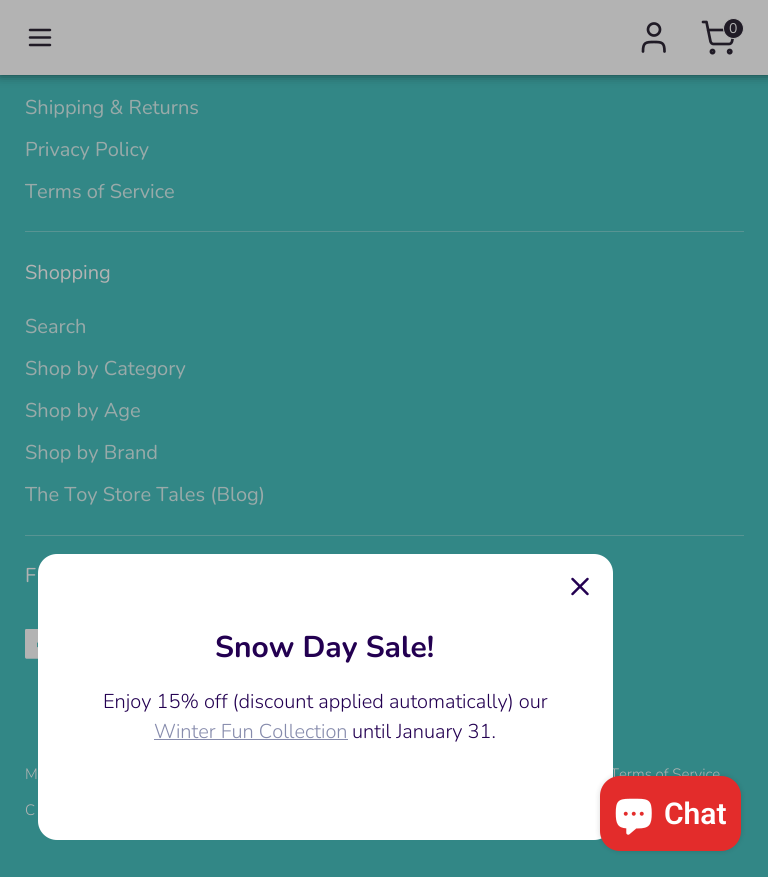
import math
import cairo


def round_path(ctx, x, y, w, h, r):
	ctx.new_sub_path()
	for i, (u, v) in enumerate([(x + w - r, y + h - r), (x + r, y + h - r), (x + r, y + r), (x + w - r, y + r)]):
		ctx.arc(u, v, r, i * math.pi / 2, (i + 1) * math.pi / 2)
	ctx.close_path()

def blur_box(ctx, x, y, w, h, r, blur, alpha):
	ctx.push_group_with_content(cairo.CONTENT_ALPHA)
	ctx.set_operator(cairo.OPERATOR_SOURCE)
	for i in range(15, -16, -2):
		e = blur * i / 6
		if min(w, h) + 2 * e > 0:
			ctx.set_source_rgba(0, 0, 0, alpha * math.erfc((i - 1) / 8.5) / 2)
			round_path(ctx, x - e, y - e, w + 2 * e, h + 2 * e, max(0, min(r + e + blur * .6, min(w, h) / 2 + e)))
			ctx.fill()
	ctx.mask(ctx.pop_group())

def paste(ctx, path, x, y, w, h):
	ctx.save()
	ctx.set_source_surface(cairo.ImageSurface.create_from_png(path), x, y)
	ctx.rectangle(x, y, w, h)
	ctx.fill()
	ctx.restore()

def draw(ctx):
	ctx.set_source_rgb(0.196, 0.529, 0.525)
	ctx.paint()
	ctx.set_source_rgb(0, 0, 0)
	blur_box(ctx, 0, -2, 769, 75, 0, 6, 0.75)
	ctx.set_source_rgb(0.702, 0.702, 0.702)
	ctx.rectangle(0, 0, 768, 75)
	ctx.fill()
	ctx.new_path()
	ctx.move_to(30, 37.5)
	ctx.line_to(50, 37.5)
	ctx.move_to(30, 30)
	ctx.line_to(50, 30)
	ctx.move_to(30, 45)
	ctx.line_to(50, 45)
	ctx.set_source_rgb(0.125, 0.106, 0.149)
	ctx.set_line_width(2.5)
	ctx.set_line_cap(cairo.LINE_CAP_ROUND)
	ctx.set_line_join(cairo.LINE_JOIN_ROUND)
	ctx.stroke()
	ctx.new_path()
	ctx.move_to(664.5, 51.5)
	ctx.curve_to(664.5, 42.5, 662, 42, 654, 42)
	ctx.curve_to(645.5, 42, 643, 42.5, 643, 51.5)
	ctx.set_line_width(2.7)
	ctx.stroke()
	ctx.arc(654, 29.5, 6, 0, 2 * math.pi)
	ctx.set_line_cap(cairo.LINE_CAP_BUTT)
	ctx.set_line_join(cairo.LINE_JOIN_MITER)
	ctx.stroke()
	ctx.arc(712.5, 51.6, 1.6, 0, 2 * math.pi)
	ctx.stroke()
	ctx.arc(729.7, 51.6, 1.6, 0, 2 * math.pi)
	ctx.stroke()
	ctx.new_path()
	ctx.move_to(703, 22)
	ctx.line_to(706.5, 22)
	ctx.line_to(710.5, 41.5)
	ctx.curve_to(711, 43, 712, 44, 713.5, 44)
	ctx.line_to(729, 44)
	ctx.curve_to(730.5, 44, 731.5, 43, 732, 41.5)
	ctx.line_to(734.5, 30)
	ctx.line_to(708, 30)
	ctx.set_line_cap(cairo.LINE_CAP_ROUND)
	ctx.set_line_join(cairo.LINE_JOIN_ROUND)
	ctx.stroke()
	ctx.arc(733.5, 28.5, 10, 0, 2 * math.pi)
	ctx.fill_preserve()
	ctx.set_source_rgb(0.702, 0.702, 0.702)
	ctx.set_line_width(1)
	ctx.set_line_cap(cairo.LINE_CAP_BUTT)
	ctx.set_line_join(cairo.LINE_JOIN_MITER)
	ctx.stroke()
	ctx.select_font_face('Nunito')
	ctx.set_font_size(14)
	ctx.move_to(729, 33)
	ctx.show_text('0')
	ctx.set_source_rgb(0.345, 0.58, 0.576)
	ctx.rectangle(25, 231, 719, 1)
	ctx.fill()
	ctx.set_font_size(20)
	ctx.set_source_rgb(0.6, 0.667, 0.663)
	for x, y, s in [
		(25, 114, 'Shipping & Returns'),
		(25, 156, 'Privacy Policy'),
		(25, 198, 'Terms of Service'),
	]:
		ctx.move_to(x, y)
		ctx.show_text(s)
	ctx.set_source_rgb(0.345, 0.58, 0.576)
	ctx.rectangle(25, 535, 719, 1)
	ctx.fill()
	ctx.set_source_rgb(0.702, 0.702, 0.702)
	ctx.move_to(25, 279)
	ctx.show_text('Shopping')
	ctx.set_source_rgb(0.6, 0.667, 0.663)
	for x, y, s in [
		(25, 333, 'Search'),
		(25, 375, 'Shop by Category'),
		(25, 417, 'Shop by Age'),
		(25, 459, 'Shop by Brand'),
		(25, 501, 'The Toy Store Tales (Blog)'),
	]:
		ctx.move_to(x, y)
		ctx.show_text(s)
	ctx.set_source_rgb(0.702, 0.702, 0.702)
	ctx.move_to(25, 582)
	ctx.show_text('F')
	paste(ctx, 'media/1.png', 25, 629, 13, 30)
	ctx.select_font_face('Nunito Light')
	ctx.set_font_size(15)
	for x, y, s in [
		(25, 779, 'M'),
		(610, 779, 'Terms of Service'),
		(25, 815, 'C'),
	]:
		ctx.move_to(x, y)
		ctx.show_text(s)
	ctx.set_source_rgb(1, 1, 1)
	round_path(ctx, 38, 554, 575, 286, 19)
	ctx.fill()
	ctx.new_path()
	ctx.move_to(587.5, 579)
	ctx.line_to(572.5, 594)
	ctx.move_to(572.5, 579)
	ctx.line_to(587.5, 594)
	ctx.set_source_rgb(0.137, 0, 0.318)
	ctx.set_line_width(2.5)
	ctx.set_line_cap(cairo.LINE_CAP_ROUND)
	ctx.stroke()
	ctx.select_font_face('Nunito', cairo.FONT_SLANT_NORMAL, cairo.FONT_WEIGHT_BOLD)
	ctx.set_font_size(30)
	ctx.move_to(215, 657)
	ctx.show_text('Snow Day Sale!')
	ctx.select_font_face('Nunito Light')
	ctx.set_font_size(20)
	ctx.move_to(103, 708)
	ctx.show_text('Enjoy 15% off (discount applied automatically) our')
	ctx.set_source_rgb(0.525, 0.545, 0.675)
	ctx.move_to(154, 738)
	ctx.show_text('Winter Fun Collection')
	ctx.rectangle(154, 739, 194, 1)
	ctx.fill()
	ctx.set_source_rgb(0.137, 0, 0.318)
	ctx.move_to(352, 738)
	ctx.show_text('until January 31.')
	ctx.set_source_rgb(0, 0, 0)
	blur_box(ctx, 600, 776, 141, 75, 20, 3, 0.15)
	ctx.set_source_rgb(0.89, 0.173, 0.169)
	round_path(ctx, 600, 776, 141, 75, 20)
	ctx.fill()
	paste(ctx, 'media/2.png', 615, 798, 37, 37)
	ctx.select_font_face('Roboto SemiBold')
	ctx.set_font_size(30)
	ctx.set_source_rgb(1, 1, 1)
	ctx.move_to(664, 824)
	ctx.show_text('Chat')


surface = cairo.ImageSurface(cairo.FORMAT_RGB24, 768, 877)
ctx = cairo.Context(surface)
options = cairo.FontOptions()
options.set_hint_metrics(cairo.HINT_METRICS_OFF)
options.set_hint_style(cairo.HINT_STYLE_NONE)
ctx.set_font_options(options)
ctx.set_miter_limit(4)
draw(ctx)
surface.write_to_png('image.png')
